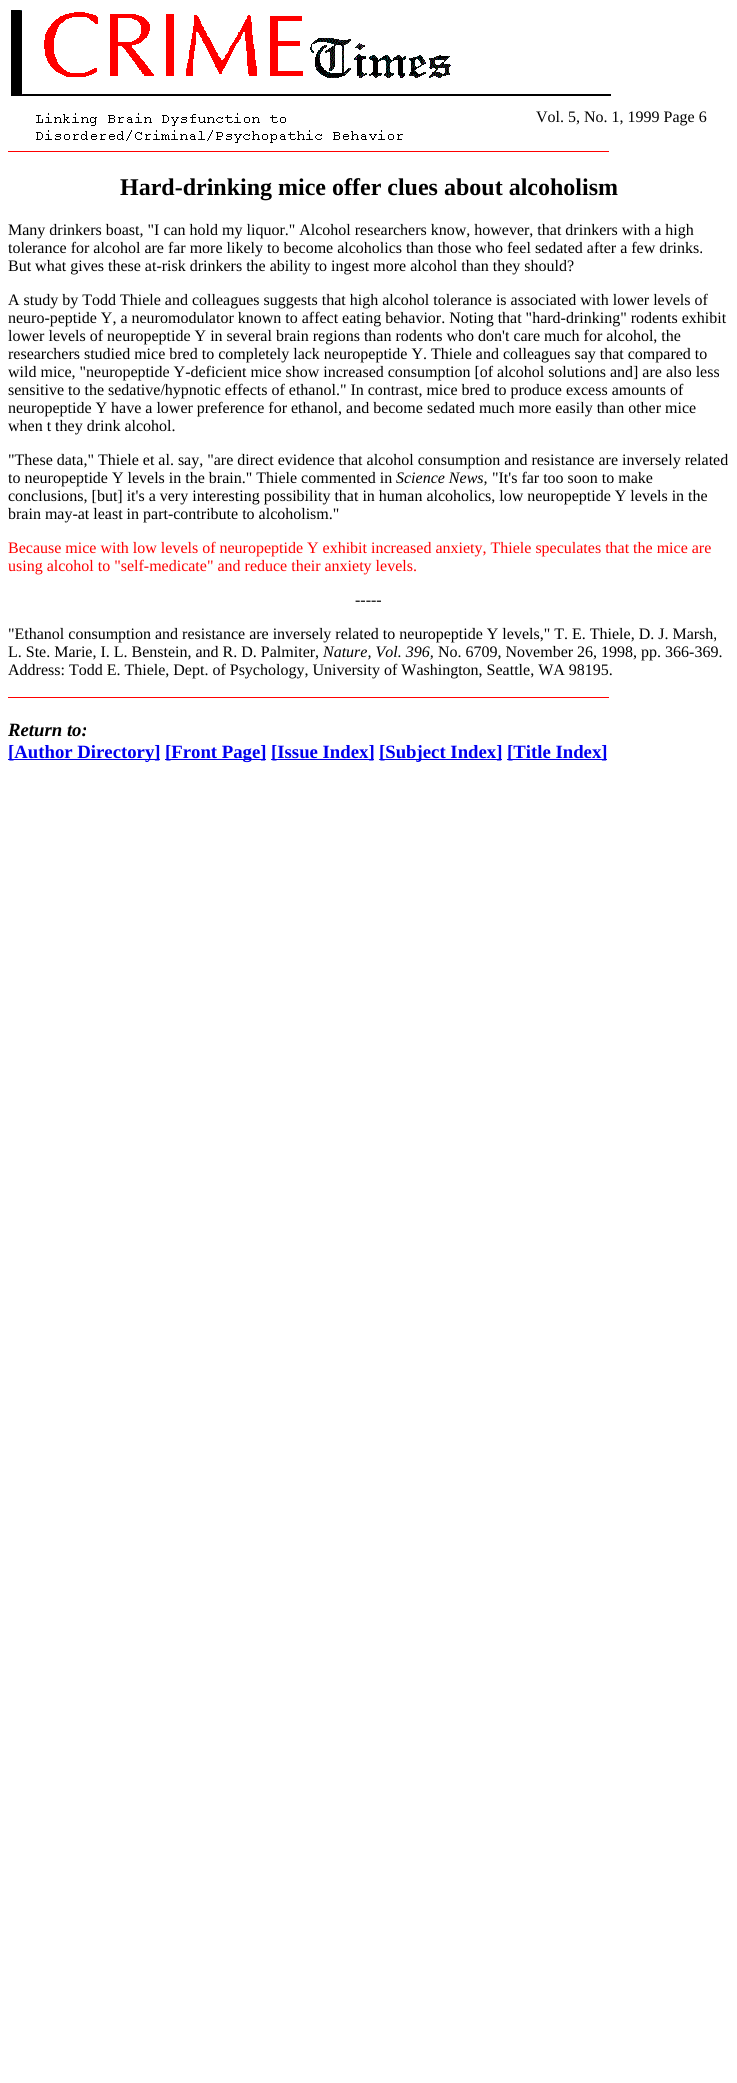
import math
import cairo


def paste(ctx, path, x, y, w, h):
	ctx.save()
	ctx.set_source_surface(cairo.ImageSurface.create_from_png(path), x, y)
	ctx.rectangle(x, y, w, h)
	ctx.fill()
	ctx.restore()

def draw(ctx):
	ctx.set_source_rgb(1, 1, 1)
	ctx.paint()
	paste(ctx, 'media/1.png', 11, 10, 600, 86)
	paste(ctx, 'media/2.png', 36, 113, 367, 30)
	ctx.select_font_face('Liberation Serif')
	ctx.set_font_size(16)
	ctx.set_source_rgb(0, 0, 0)
	ctx.move_to(536, 122)
	ctx.show_text('Vol. 5, No. 1, 1999 Page 6')
	ctx.set_source_rgb(1, 0, 0)
	ctx.rectangle(8, 151, 601, 1)
	ctx.fill()
	ctx.select_font_face('Liberation Serif', cairo.FONT_SLANT_NORMAL, cairo.FONT_WEIGHT_BOLD)
	ctx.set_font_size(24)
	ctx.set_source_rgb(0, 0, 0)
	ctx.move_to(120, 195)
	ctx.show_text('Hard-drinking mice offer clues about alcoholism')
	ctx.select_font_face('Liberation Serif')
	ctx.set_font_size(16)
	for x, y, s in [
		(8, 235, 'Many drinkers boast, "I can hold my liquor." Alcohol researchers know, however, that drinkers with a high'),
		(8, 253, 'tolerance for alcohol are far more likely to become alcoholics than those who feel sedated after a few drinks.'),
		(8, 271, 'But what gives these at-risk drinkers the ability to ingest more alcohol than they should?'),
		(8, 305, 'A study by Todd Thiele and colleagues suggests that high alcohol tolerance is associated with lower levels of'),
		(8, 323, 'neuro-peptide Y, a neuromodulator known to affect eating behavior. Noting that "hard-drinking" rodents exhibit'),
		(8, 341, 'lower levels of neuropeptide Y in several brain regions than rodents who don\'t care much for alcohol, the'),
		(8, 359, 'researchers studied mice bred to completely lack neuropeptide Y. Thiele and colleagues say that compared to'),
		(8, 377, 'wild mice, "neuropeptide Y-deficient mice show increased consumption [of alcohol solutions and] are also less'),
		(8, 395, 'sensitive to the sedative/hypnotic effects of ethanol." In contrast, mice bred to produce excess amounts of'),
		(8, 413, 'neuropeptide Y have a lower preference for ethanol, and become sedated much more easily than other mice'),
		(8, 431, 'when t they drink alcohol.'),
		(8, 465, '"These data," Thiele et al. say, "are direct evidence that alcohol consumption and resistance are inversely related'),
		(8, 483, 'to neuropeptide Y levels in the brain." Thiele commented in'),
	]:
		ctx.move_to(x, y)
		ctx.show_text(s)
	ctx.select_font_face('Liberation Serif', cairo.FONT_SLANT_ITALIC)
	ctx.move_to(396, 483)
	ctx.show_text('Science News,')
	ctx.select_font_face('Liberation Serif')
	for x, y, s in [
		(492, 483, '"It\'s far too soon to make'),
		(8, 501, 'conclusions, [but] it\'s a very interesting possibility that in human alcoholics, low neuropeptide Y levels in the'),
		(8, 519, 'brain may-at least in part-contribute to alcoholism."'),
	]:
		ctx.move_to(x, y)
		ctx.show_text(s)
	ctx.set_source_rgb(1, 0, 0)
	ctx.move_to(8, 553)
	ctx.show_text('Because mice with low levels of neuropeptide Y exhibit increased anxiety, Thiele speculates that the mice are')
	ctx.move_to(8, 571)
	ctx.show_text('using alcohol to "self-medicate" and reduce their anxiety levels.')
	ctx.set_source_rgb(0, 0, 0)
	for x, y, s in [
		(355, 605, '-----'),
		(8, 639, '"Ethanol consumption and resistance are inversely related to neuropeptide Y levels," T. E. Thiele, D. J. Marsh,'),
		(8, 657, 'L. Ste. Marie, I. L. Benstein, and R. D. Palmiter,'),
	]:
		ctx.move_to(x, y)
		ctx.show_text(s)
	ctx.select_font_face('Liberation Serif', cairo.FONT_SLANT_ITALIC)
	ctx.move_to(323, 657)
	ctx.show_text('Nature, Vol. 396,')
	ctx.select_font_face('Liberation Serif')
	ctx.move_to(438, 657)
	ctx.show_text('No. 6709, November 26, 1998, pp. 366-369.')
	ctx.move_to(8, 675)
	ctx.show_text('Address: Todd E. Thiele, Dept. of Psychology, University of Washington, Seattle, WA 98195.')
	ctx.set_source_rgb(1, 0, 0)
	ctx.rectangle(8, 697, 601, 1)
	ctx.fill()
	ctx.select_font_face('Liberation Serif', cairo.FONT_SLANT_ITALIC, cairo.FONT_WEIGHT_BOLD)
	ctx.set_font_size(18.75)
	ctx.set_source_rgb(0, 0, 0)
	ctx.move_to(8, 736)
	ctx.show_text('Return to:')
	ctx.set_source_rgb(0, 0, 0.933)
	ctx.rectangle(8, 759, 152, 1)
	ctx.fill()
	ctx.select_font_face('Liberation Serif', cairo.FONT_SLANT_NORMAL, cairo.FONT_WEIGHT_BOLD)
	ctx.move_to(8, 758)
	ctx.show_text('[Author Directory]')
	ctx.rectangle(165, 759, 101, 1)
	ctx.fill()
	ctx.move_to(165, 758)
	ctx.show_text('[Front Page]')
	ctx.rectangle(271, 759, 103, 1)
	ctx.fill()
	ctx.move_to(271, 758)
	ctx.show_text('[Issue Index]')
	ctx.rectangle(379, 759, 123, 1)
	ctx.fill()
	ctx.move_to(379, 758)
	ctx.show_text('[Subject Index]')
	ctx.rectangle(507, 759, 100, 1)
	ctx.fill()
	ctx.move_to(507, 758)
	ctx.show_text('[Title Index]')


surface = cairo.ImageSurface(cairo.FORMAT_RGB24, 737, 2083)
ctx = cairo.Context(surface)
options = cairo.FontOptions()
options.set_hint_metrics(cairo.HINT_METRICS_OFF)
options.set_hint_style(cairo.HINT_STYLE_NONE)
ctx.set_font_options(options)
ctx.set_miter_limit(4)
draw(ctx)
surface.write_to_png('image.png')
